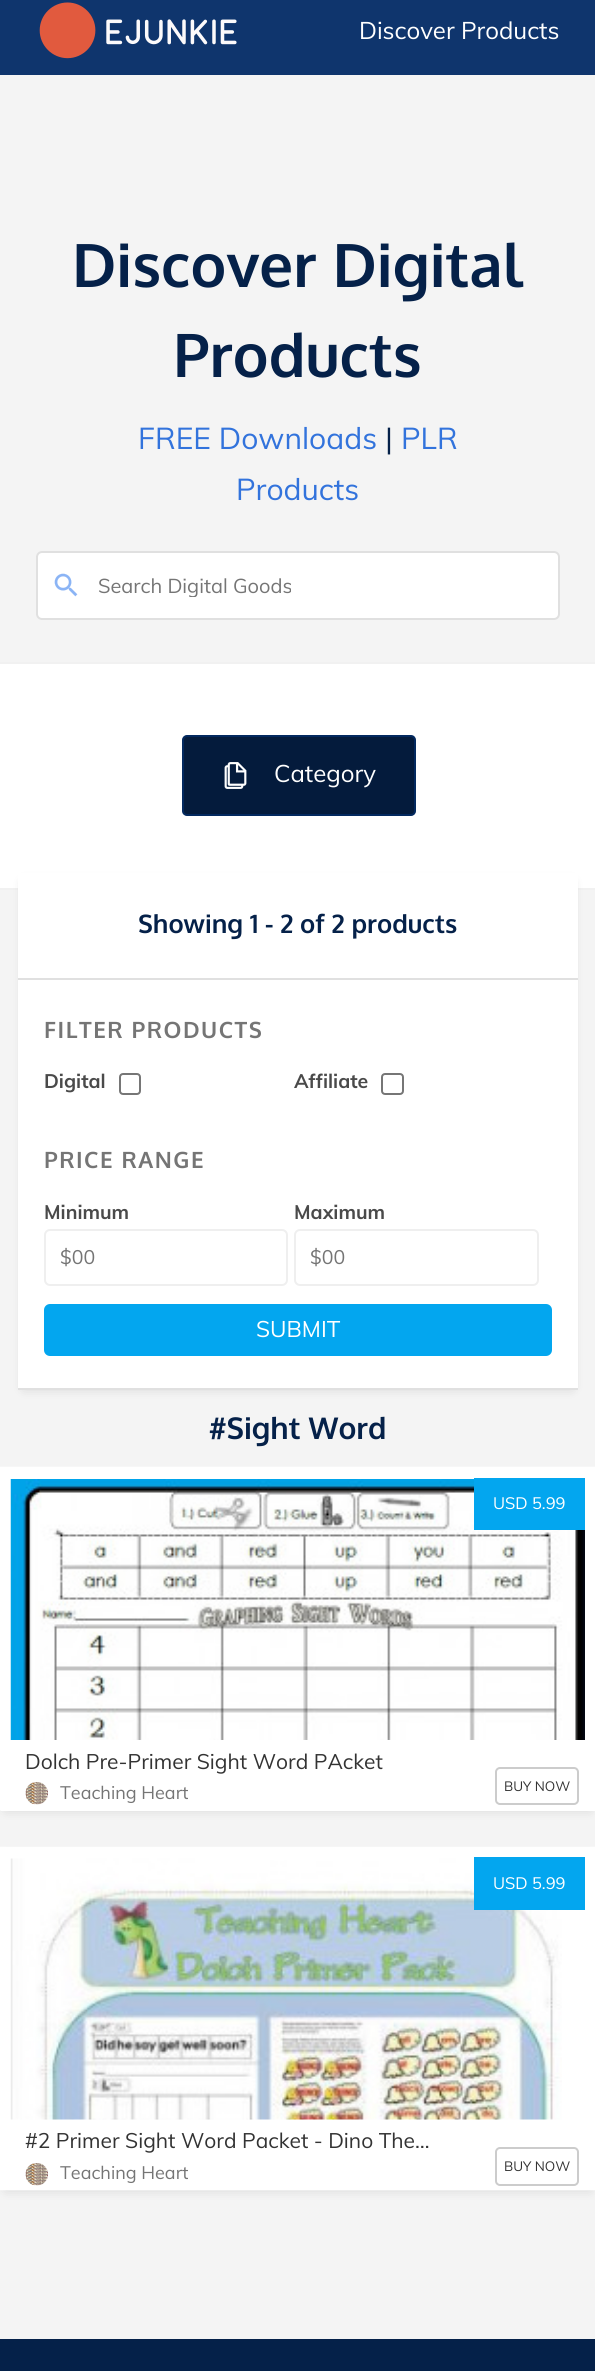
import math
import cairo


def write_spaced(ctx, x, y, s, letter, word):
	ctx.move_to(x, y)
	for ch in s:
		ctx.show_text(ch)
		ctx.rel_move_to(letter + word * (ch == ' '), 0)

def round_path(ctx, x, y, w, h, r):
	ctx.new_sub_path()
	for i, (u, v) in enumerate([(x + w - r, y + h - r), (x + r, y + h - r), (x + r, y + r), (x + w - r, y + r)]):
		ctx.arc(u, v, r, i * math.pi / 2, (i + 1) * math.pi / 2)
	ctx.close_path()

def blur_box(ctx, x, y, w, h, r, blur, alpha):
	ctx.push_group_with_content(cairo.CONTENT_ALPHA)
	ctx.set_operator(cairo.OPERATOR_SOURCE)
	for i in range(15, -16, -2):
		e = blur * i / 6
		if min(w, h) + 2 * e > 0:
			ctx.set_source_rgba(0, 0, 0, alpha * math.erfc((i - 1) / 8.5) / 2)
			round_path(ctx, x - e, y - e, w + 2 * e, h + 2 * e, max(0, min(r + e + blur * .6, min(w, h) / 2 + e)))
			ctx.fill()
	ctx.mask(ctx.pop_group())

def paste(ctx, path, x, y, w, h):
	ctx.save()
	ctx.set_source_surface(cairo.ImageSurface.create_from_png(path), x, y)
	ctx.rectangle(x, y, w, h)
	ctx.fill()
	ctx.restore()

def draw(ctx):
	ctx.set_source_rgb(0.957, 0.957, 0.957)
	ctx.paint()
	ctx.set_source_rgb(0.059, 0.208, 0.427)
	ctx.rectangle(0, 0, 595, 75)
	ctx.fill()
	paste(ctx, 'media/1.png', 39, 2, 198, 57)
	ctx.select_font_face('Muli')
	ctx.set_font_size(24)
	ctx.set_source_rgb(1, 1, 1)
	ctx.move_to(359, 39)
	ctx.show_text('Discover Products')
	ctx.select_font_face('Oxygen', cairo.FONT_SLANT_NORMAL, cairo.FONT_WEIGHT_BOLD)
	ctx.set_font_size(60)
	ctx.set_source_rgb(0.02, 0.129, 0.286)
	ctx.move_to(72, 287)
	ctx.show_text('Discover Digital')
	ctx.move_to(173, 377)
	ctx.show_text('Products')
	ctx.select_font_face('Muli')
	ctx.set_font_size(30)
	ctx.set_source_rgb(0.196, 0.451, 0.863)
	ctx.move_to(138, 449)
	ctx.show_text('FREE Downloads')
	ctx.set_source_rgb(0.02, 0.129, 0.286)
	ctx.move_to(385, 449)
	ctx.show_text('|')
	ctx.set_source_rgb(0.196, 0.451, 0.863)
	ctx.move_to(401, 449)
	ctx.show_text('PLR')
	ctx.move_to(236, 500)
	ctx.show_text('Products')
	ctx.set_source_rgb(1, 1, 1)
	round_path(ctx, 37, 552, 522, 67, 5)
	ctx.fill_preserve()
	ctx.set_source_rgb(0.878, 0.878, 0.878)
	ctx.stroke()
	paste(ctx, 'media/2.png', 54, 573, 24, 24)
	ctx.save()
	ctx.rectangle(98, 573, 439, 24)
	ctx.clip()
	ctx.set_font_size(20)
	ctx.set_source_rgb(0.459, 0.459, 0.459)
	ctx.move_to(98, 593)
	ctx.show_text('Search Digital Goods')
	ctx.restore()
	ctx.set_source_rgb(1, 1, 1)
	ctx.rectangle(0, 664, 595, 224)
	ctx.fill()
	ctx.set_source_rgb(0.945, 0.945, 0.945)
	ctx.rectangle(0, 662, 595, 2)
	ctx.rectangle(0, 888, 595, 2)
	ctx.fill()
	ctx.set_source_rgb(0.016, 0.106, 0.235)
	round_path(ctx, 183, 736, 232, 79, 4)
	ctx.fill_preserve()
	ctx.set_source_rgb(0.012, 0.161, 0.373)
	ctx.stroke()
	paste(ctx, 'media/3.png', 224, 762, 23, 27)
	ctx.set_font_size(24)
	ctx.set_source_rgb(1, 1, 1)
	ctx.move_to(274, 782)
	ctx.show_text('Category')
	ctx.set_source_rgb(0, 0, 0)
	blur_box(ctx, 24, 882, 548, 506, 0, 6, 0.15)
	ctx.set_source_rgb(1, 1, 1)
	ctx.rectangle(18, 873, 560, 515)
	ctx.fill()
	ctx.set_source_rgb(0.878, 0.878, 0.878)
	ctx.rectangle(18, 978, 560, 2)
	ctx.fill()
	ctx.select_font_face('Oxygen', cairo.FONT_SLANT_NORMAL, cairo.FONT_WEIGHT_BOLD)
	ctx.set_font_size(25.5)
	ctx.set_source_rgb(0.02, 0.129, 0.286)
	ctx.move_to(138, 933)
	ctx.show_text('Showing 1 - 2 of 2 products')
	ctx.set_source_rgb(0.878, 0.878, 0.878)
	ctx.rectangle(18, 1388, 560, 2)
	ctx.fill()
	ctx.set_font_size(22.5)
	ctx.set_source_rgb(0.459, 0.459, 0.459)
	write_spaced(ctx, 44, 1038, 'FILTER PRODUCTS', 1.5, 0)
	ctx.select_font_face('Muli', cairo.FONT_SLANT_NORMAL, cairo.FONT_WEIGHT_BOLD)
	ctx.set_font_size(19.5)
	ctx.set_source_rgb(0.29, 0.29, 0.29)
	ctx.move_to(44, 1088)
	ctx.show_text('Digital')
	round_path(ctx, 120, 1074, 20, 20, 3)
	ctx.set_source_rgb(0.463, 0.463, 0.463)
	ctx.stroke()
	ctx.set_source_rgb(0.29, 0.29, 0.29)
	ctx.move_to(294, 1088)
	ctx.show_text('Affiliate')
	round_path(ctx, 382, 1074, 21, 20, 3)
	ctx.set_source_rgb(0.463, 0.463, 0.463)
	ctx.stroke()
	ctx.select_font_face('Oxygen', cairo.FONT_SLANT_NORMAL, cairo.FONT_WEIGHT_BOLD)
	ctx.set_font_size(22.5)
	ctx.set_source_rgb(0.459, 0.459, 0.459)
	write_spaced(ctx, 44, 1168, 'PRICE RANGE', 1.5, 0)
	ctx.select_font_face('Muli', cairo.FONT_SLANT_NORMAL, cairo.FONT_WEIGHT_BOLD)
	ctx.set_font_size(19.5)
	ctx.set_source_rgb(0.29, 0.29, 0.29)
	ctx.move_to(44, 1219)
	ctx.show_text('Minimum')
	round_path(ctx, 45, 1230, 242, 55, 5)
	ctx.set_source_rgb(0.937, 0.937, 0.937)
	ctx.stroke()
	ctx.select_font_face('Muli')
	ctx.set_source_rgb(0.459, 0.459, 0.459)
	ctx.move_to(60, 1264)
	ctx.show_text('$00')
	ctx.select_font_face('Muli', cairo.FONT_SLANT_NORMAL, cairo.FONT_WEIGHT_BOLD)
	ctx.set_source_rgb(0.29, 0.29, 0.29)
	ctx.move_to(294, 1219)
	ctx.show_text('Maximum')
	round_path(ctx, 295, 1230, 243, 55, 5)
	ctx.set_source_rgb(0.937, 0.937, 0.937)
	ctx.stroke()
	ctx.select_font_face('Muli')
	ctx.set_source_rgb(0.459, 0.459, 0.459)
	ctx.move_to(310, 1264)
	ctx.show_text('$00')
	ctx.set_source_rgb(0.012, 0.651, 0.937)
	round_path(ctx, 44, 1304, 508, 52, 6)
	ctx.fill()
	ctx.set_font_size(22.5)
	ctx.set_source_rgb(1, 1, 1)
	ctx.move_to(256, 1337)
	ctx.show_text('SUBMIT')
	ctx.select_font_face('Oxygen', cairo.FONT_SLANT_NORMAL, cairo.FONT_WEIGHT_BOLD)
	ctx.set_font_size(30)
	ctx.set_source_rgb(0.02, 0.129, 0.286)
	ctx.move_to(209, 1439)
	ctx.show_text('#Sight Word')
	ctx.set_source_rgb(0, 0, 0)
	blur_box(ctx, 6, 1478, 584, 331, 0, 6, 0.15)
	ctx.set_source_rgb(1, 1, 1)
	round_path(ctx, 0, 1467, 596, 344, 1.5)
	ctx.fill()
	ctx.new_path()
	ctx.move_to(5, 1472)
	ctx.line_to(590, 1472)
	ctx.line_to(590, 1805)
	ctx.line_to(5, 1805)
	ctx.close_path()
	ctx.set_line_width(10.5)
	ctx.stroke()
	paste(ctx, 'media/4.png', 10, 1479, 575, 261)
	ctx.set_source_rgb(0.012, 0.651, 0.937)
	ctx.rectangle(474, 1478, 111, 52)
	ctx.fill()
	ctx.select_font_face('Muli')
	ctx.set_font_size(16.5)
	ctx.set_source_rgb(1, 1, 1)
	ctx.move_to(493, 1509)
	ctx.show_text('USD 5.99')
	ctx.set_font_size(21)
	ctx.set_source_rgb(0.2, 0.2, 0.2)
	ctx.move_to(25, 1769)
	ctx.show_text('Dolch Pre-Primer Sight Word PAcket')
	paste(ctx, 'media/5.png', 25, 1782, 23, 23)
	ctx.set_font_size(18)
	ctx.set_source_rgb(0.459, 0.459, 0.459)
	ctx.move_to(60, 1799)
	ctx.show_text('Teaching Heart')
	round_path(ctx, 496, 1768, 82, 36, 4)
	ctx.set_source_rgb(0.8, 0.8, 0.8)
	ctx.set_line_width(2)
	ctx.stroke()
	ctx.set_font_size(13.5)
	ctx.set_source_rgb(0.2, 0.2, 0.2)
	ctx.move_to(504, 1791)
	ctx.show_text('BUY NOW')
	ctx.set_source_rgb(0, 0, 0)
	blur_box(ctx, 6, 1857, 584, 332, 0, 6, 0.15)
	ctx.set_source_rgb(1, 1, 1)
	ctx.rectangle(10, 1857, 575, 323)
	ctx.fill()
	ctx.new_path()
	ctx.move_to(5, 1852)
	ctx.line_to(590, 1852)
	ctx.line_to(590, 2185)
	ctx.line_to(5, 2185)
	ctx.close_path()
	ctx.set_line_width(10.5)
	ctx.stroke()
	paste(ctx, 'media/6.png', 10, 1858, 552, 262)
	ctx.set_source_rgb(0.012, 0.651, 0.937)
	ctx.rectangle(474, 1857, 111, 53)
	ctx.fill()
	ctx.set_font_size(16.5)
	ctx.set_source_rgb(1, 1, 1)
	ctx.move_to(493, 1889)
	ctx.show_text('USD 5.99')
	ctx.set_font_size(21)
	ctx.set_source_rgb(0.2, 0.2, 0.2)
	ctx.move_to(25, 2148)
	ctx.show_text('#2 Primer Sight Word Packet - Dino The…')
	paste(ctx, 'media/7.png', 25, 2163, 23, 23)
	ctx.set_font_size(18)
	ctx.set_source_rgb(0.459, 0.459, 0.459)
	ctx.move_to(60, 2179)
	ctx.show_text('Teaching Heart')
	round_path(ctx, 496, 2148, 82, 37, 4)
	ctx.set_source_rgb(0.8, 0.8, 0.8)
	ctx.set_line_width(2)
	ctx.stroke()
	ctx.set_font_size(13.5)
	ctx.set_source_rgb(0.2, 0.2, 0.2)
	ctx.move_to(504, 2171)
	ctx.show_text('BUY NOW')
	ctx.set_source_rgb(0.02, 0.129, 0.286)
	ctx.rectangle(0, 2339, 595, 32)
	ctx.fill()


surface = cairo.ImageSurface(cairo.FORMAT_RGB24, 595, 2371)
ctx = cairo.Context(surface)
options = cairo.FontOptions()
options.set_hint_metrics(cairo.HINT_METRICS_OFF)
options.set_hint_style(cairo.HINT_STYLE_NONE)
ctx.set_font_options(options)
ctx.set_miter_limit(4)
draw(ctx)
surface.write_to_png('image.png')
